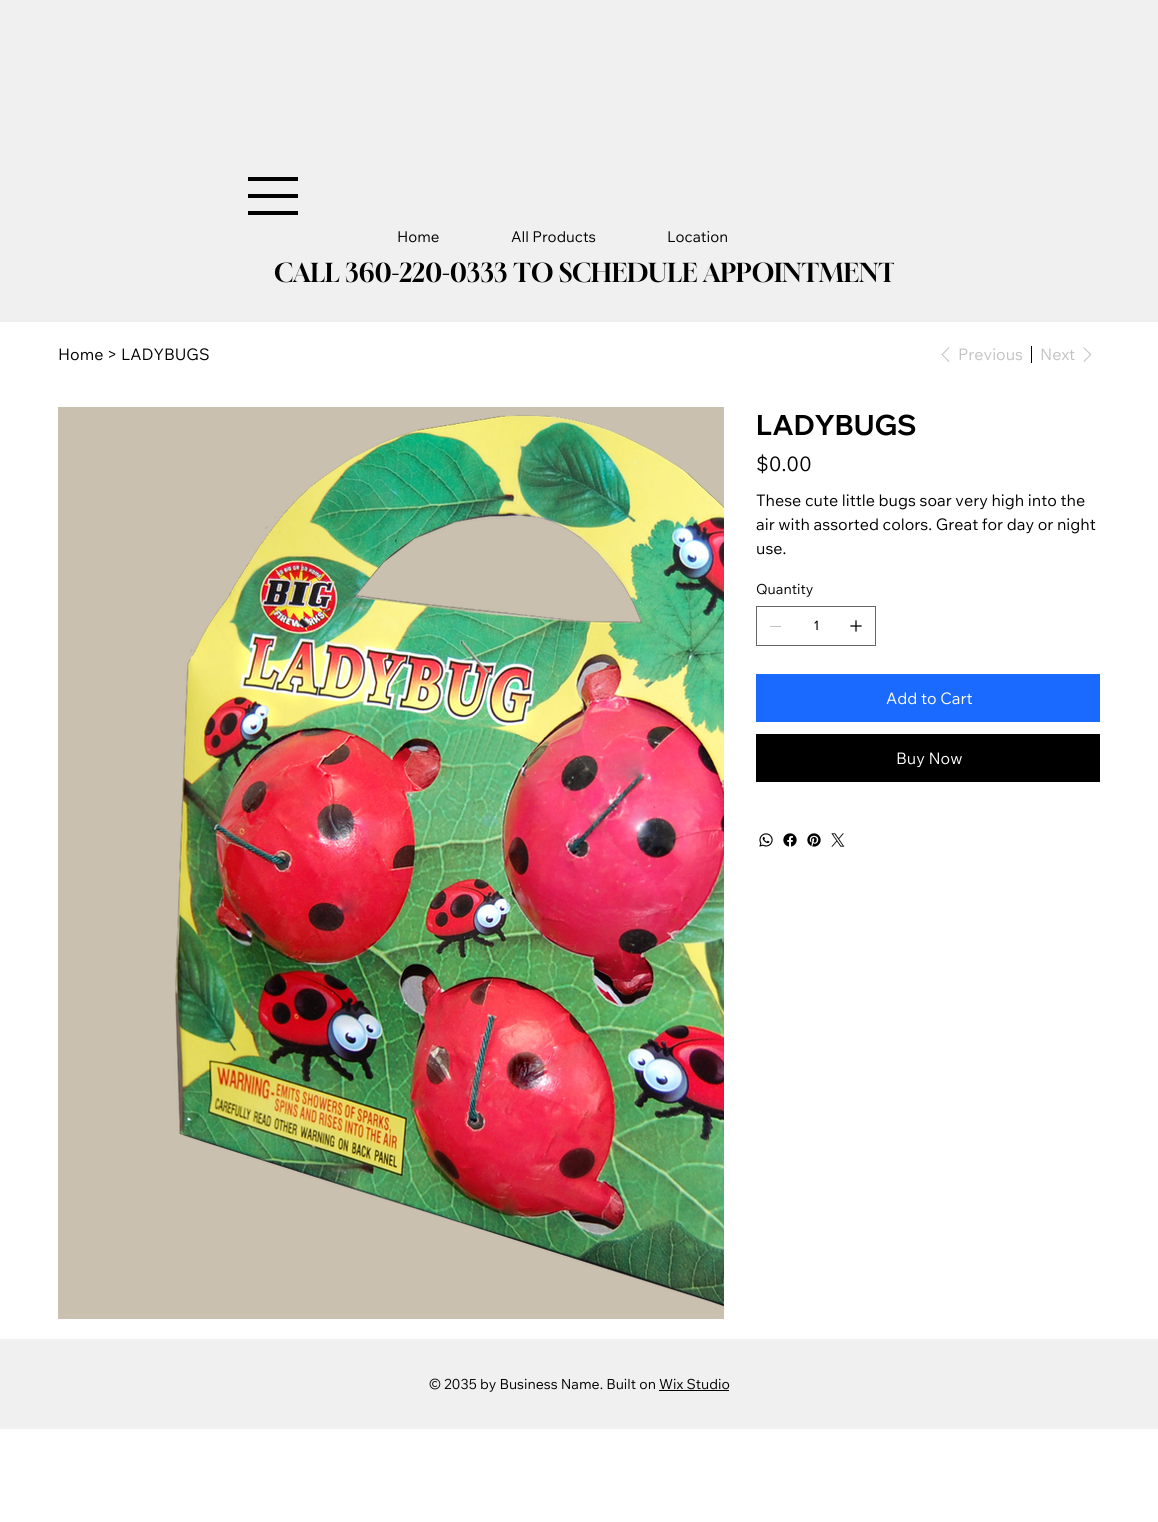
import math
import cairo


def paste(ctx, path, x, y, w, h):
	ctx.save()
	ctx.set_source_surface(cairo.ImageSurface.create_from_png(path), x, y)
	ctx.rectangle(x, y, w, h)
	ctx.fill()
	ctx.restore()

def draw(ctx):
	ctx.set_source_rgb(1, 1, 1)
	ctx.paint()
	ctx.set_source_rgb(0.941, 0.941, 0.941)
	ctx.rectangle(0, 0, 1158, 322)
	ctx.fill()
	ctx.set_source_rgb(0, 0, 0)
	ctx.set_fill_rule(cairo.FILL_RULE_EVEN_ODD)
	ctx.new_path()
	ctx.move_to(298, 181)
	ctx.line_to(248, 181)
	ctx.line_to(248, 177)
	ctx.line_to(298, 177)
	ctx.close_path()
	ctx.move_to(298, 198)
	ctx.line_to(248, 198)
	ctx.line_to(248, 194)
	ctx.line_to(298, 194)
	ctx.close_path()
	ctx.move_to(298, 215)
	ctx.line_to(248, 215)
	ctx.line_to(248, 211)
	ctx.line_to(298, 211)
	ctx.close_path()
	ctx.fill()
	ctx.select_font_face('Wix Madefor Text')
	ctx.set_font_size(15)
	for x, y, s in [
		(397, 242, 'Home'),
		(511, 242, 'All Products'),
		(667, 242, 'Location'),
	]:
		ctx.move_to(x, y)
		ctx.show_text(s)
	ctx.save()
	ctx.set_fill_rule(cairo.FILL_RULE_WINDING)
	ctx.rectangle(274, 0, 620, 322)
	ctx.clip()
	ctx.select_font_face('Gloock')
	ctx.set_font_size(25.6)
	ctx.move_to(274, 282)
	ctx.show_text('CALL 360-220-0333 TO SCHEDULE APPOINTMENT')
	ctx.restore()
	ctx.set_font_size(16)
	for x, y, s in [
		(58, 360, 'Home'),
		(107, 360, '>'),
		(121, 360, 'LADYBUGS'),
	]:
		ctx.move_to(x, y)
		ctx.show_text(s)
	paste(ctx, 'media/1.png', 941, 347, 9, 15)
	ctx.set_source_rgb(0.761, 0.761, 0.761)
	ctx.move_to(958, 360)
	ctx.show_text('Previous')
	ctx.set_source_rgb(0, 0, 0)
	ctx.rectangle(1031, 346, 1, 17)
	ctx.fill()
	ctx.set_source_rgb(0.761, 0.761, 0.761)
	ctx.move_to(1040, 360)
	ctx.show_text('Next')
	paste(ctx, 'media/2.png', 1083, 347, 9, 15)
	ctx.set_source_rgb(0.792, 0.753, 0.686)
	ctx.rectangle(58, 407, 666, 912)
	ctx.fill()
	paste(ctx, 'media/3.png', 175, 415, 549, 892)
	ctx.select_font_face('Wix Madefor Display', cairo.FONT_SLANT_NORMAL, cairo.FONT_WEIGHT_BOLD)
	ctx.set_font_size(28)
	ctx.set_source_rgb(0, 0, 0)
	ctx.move_to(756, 435)
	ctx.show_text('LADYBUGS')
	ctx.select_font_face('Wix Madefor Text')
	ctx.set_font_size(20)
	ctx.move_to(756, 471)
	ctx.show_text('$0.00')
	ctx.set_font_size(16)
	for x, y, s in [
		(756, 506, 'These cute little bugs soar very high into the'),
		(756, 530, 'air with assorted colors. Great for day or night'),
		(756, 554, 'use.'),
	]:
		ctx.move_to(x, y)
		ctx.show_text(s)
	ctx.set_font_size(14)
	ctx.move_to(756, 594)
	ctx.show_text('Quantity')
	ctx.rectangle(756.5, 606.5, 119, 39)
	ctx.set_source_rgb(0.4, 0.4, 0.4)
	ctx.set_line_width(1)
	ctx.stroke()
	ctx.set_source_rgb(0.761, 0.761, 0.761)
	ctx.rectangle(770, 626, 11, 1)
	ctx.fill()
	ctx.select_font_face('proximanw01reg')
	ctx.set_source_rgb(0, 0, 0)
	ctx.move_to(814, 630)
	ctx.show_text('1')
	paste(ctx, 'media/4.png', 850, 620, 12, 12)
	ctx.set_source_rgb(0.102, 0.416, 1)
	ctx.rectangle(756, 674, 344, 48)
	ctx.fill()
	ctx.select_font_face('Wix Madefor Text')
	ctx.set_font_size(16)
	ctx.set_source_rgb(1, 1, 1)
	ctx.move_to(886, 704)
	ctx.show_text('Add to Cart')
	ctx.set_source_rgb(0, 0, 0)
	ctx.rectangle(756, 734, 344, 48)
	ctx.fill()
	ctx.set_source_rgb(1, 1, 1)
	ctx.move_to(896, 764)
	ctx.show_text('Buy Now')
	paste(ctx, 'media/5.png', 759, 833, 14, 14)
	paste(ctx, 'media/6.png', 783, 833, 14, 14)
	paste(ctx, 'media/7.png', 807, 833, 14, 14)
	paste(ctx, 'media/8.png', 831, 833, 14, 14)
	ctx.set_source_rgb(0.941, 0.941, 0.941)
	ctx.rectangle(0, 1339, 1158, 90)
	ctx.fill()
	ctx.set_font_size(14)
	ctx.set_source_rgb(0, 0, 0)
	ctx.move_to(429, 1389)
	ctx.show_text('© 2035 by Business Name. Built on Wix Studio')
	ctx.rectangle(659, 1390, 70, 1)
	ctx.fill()


surface = cairo.ImageSurface(cairo.FORMAT_RGB24, 1158, 1522)
ctx = cairo.Context(surface)
options = cairo.FontOptions()
options.set_hint_metrics(cairo.HINT_METRICS_OFF)
options.set_hint_style(cairo.HINT_STYLE_NONE)
ctx.set_font_options(options)
ctx.set_miter_limit(4)
draw(ctx)
surface.write_to_png('image.png')
